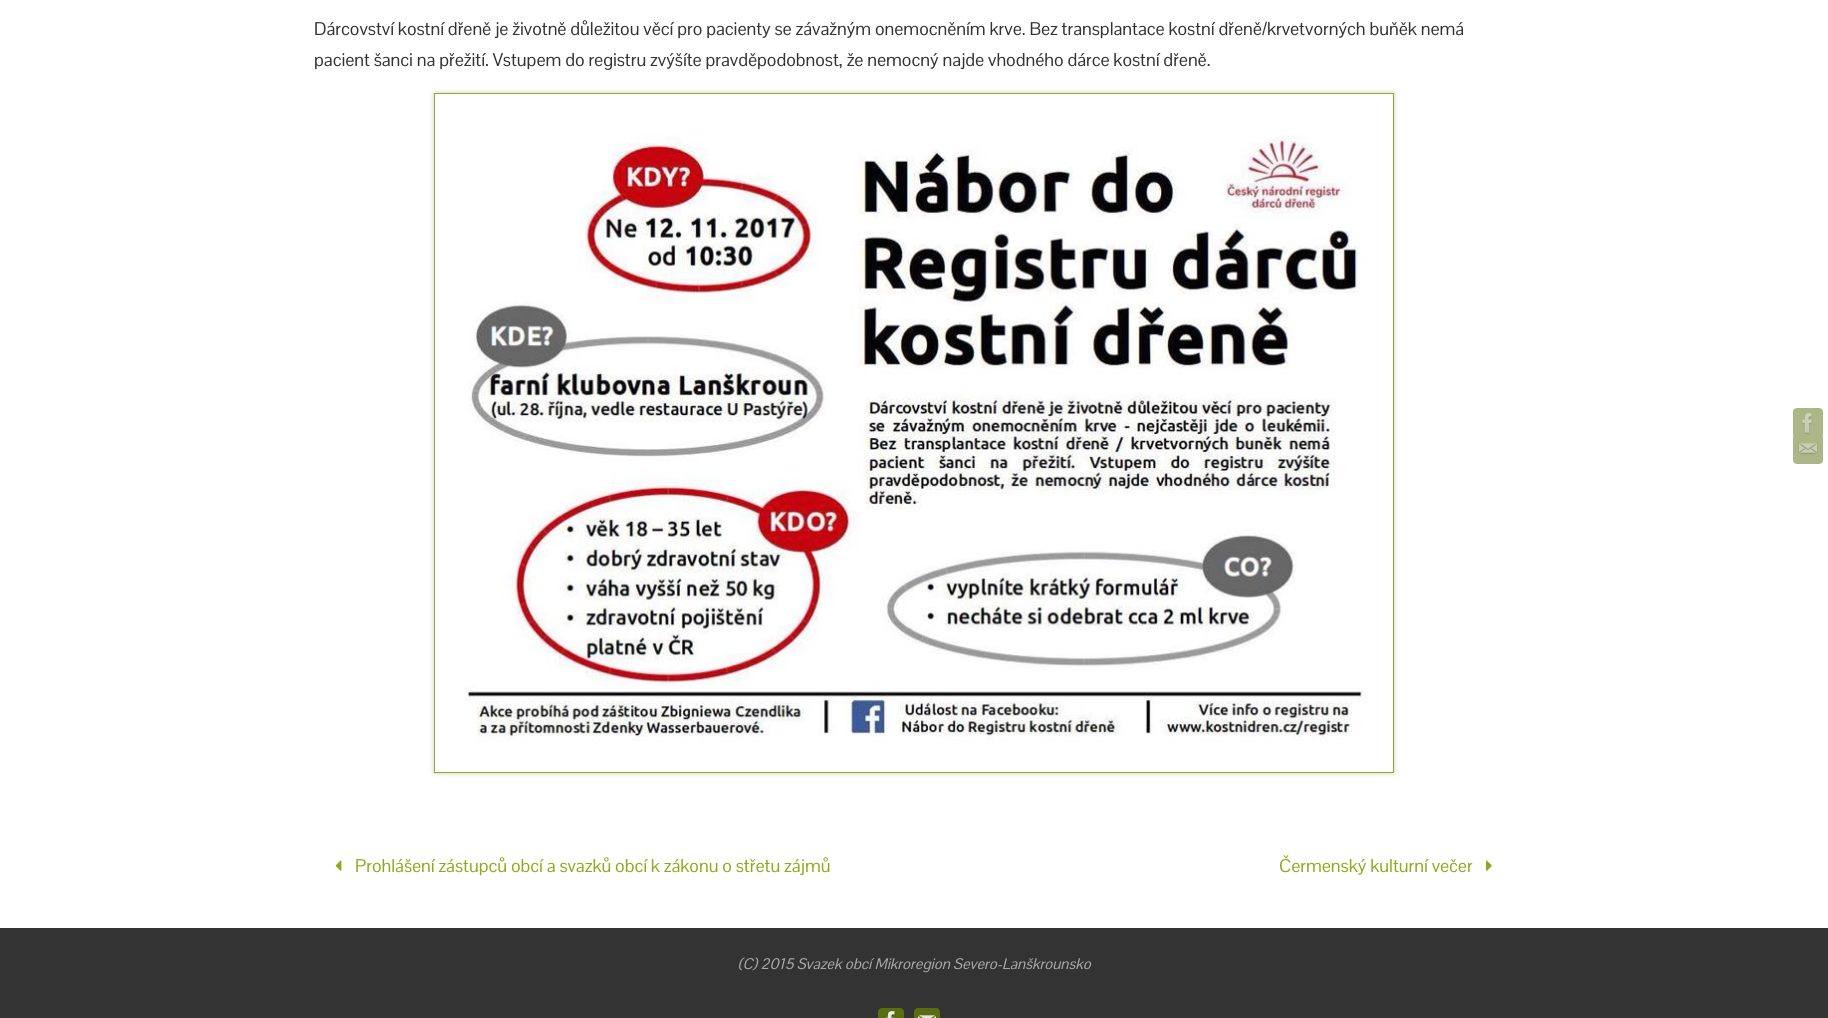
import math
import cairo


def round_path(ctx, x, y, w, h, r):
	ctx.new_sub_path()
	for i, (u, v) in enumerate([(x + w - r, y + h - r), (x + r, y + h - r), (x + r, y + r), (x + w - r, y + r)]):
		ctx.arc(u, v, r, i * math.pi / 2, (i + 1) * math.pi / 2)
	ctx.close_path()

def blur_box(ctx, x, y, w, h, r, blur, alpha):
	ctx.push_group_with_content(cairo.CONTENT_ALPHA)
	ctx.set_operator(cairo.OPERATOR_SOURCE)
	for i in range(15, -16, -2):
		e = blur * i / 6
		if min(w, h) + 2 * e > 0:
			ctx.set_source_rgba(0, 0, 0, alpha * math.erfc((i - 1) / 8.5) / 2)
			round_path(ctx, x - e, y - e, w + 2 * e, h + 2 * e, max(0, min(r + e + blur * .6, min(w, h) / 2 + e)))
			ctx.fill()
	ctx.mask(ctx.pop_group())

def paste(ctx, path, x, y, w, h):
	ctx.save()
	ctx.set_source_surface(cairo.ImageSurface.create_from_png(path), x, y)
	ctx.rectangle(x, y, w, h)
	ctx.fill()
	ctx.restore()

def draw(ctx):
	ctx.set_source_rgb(1, 1, 1)
	ctx.paint()
	ctx.select_font_face('Pontano Sans')
	ctx.set_font_size(18)
	ctx.set_source_rgb(0.2, 0.2, 0.2)
	ctx.move_to(314, 35)
	ctx.show_text('Dárcovství kostní dřeně je životně důležitou věcí pro pacienty se závažným onemocněním krve. Bez transplantace kostní dřeně/krvetvorných buňěk nemá')
	ctx.move_to(314, 66)
	ctx.show_text('pacient šanci na přežití. Vstupem do registru zvýšíte pravděpodobnost, že nemocný najde vhodného dárce kostní dřeně.')
	ctx.save()
	ctx.set_fill_rule(cairo.FILL_RULE_EVEN_ODD)
	ctx.new_path()
	ctx.move_to(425, 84)
	ctx.line_to(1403, 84)
	ctx.line_to(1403, 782)
	ctx.line_to(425, 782)
	ctx.close_path()
	ctx.move_to(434, 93)
	ctx.line_to(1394, 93)
	ctx.line_to(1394, 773)
	ctx.line_to(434, 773)
	ctx.close_path()
	ctx.clip()
	ctx.set_source_rgb(0.804, 0.804, 0.804)
	blur_box(ctx, 434, 93, 960, 680, 0, 2.5, 1)
	ctx.restore()
	ctx.rectangle(434.5, 93.5, 959, 679)
	ctx.set_source_rgb(0.545, 0.678, 0.11)
	ctx.set_line_width(1)
	ctx.stroke()
	paste(ctx, 'media/1.png', 464, 133, 904, 608)
	paste(ctx, 'media/2.png', 335, 860, 7, 11)
	ctx.set_source_rgb(0.541, 0.675, 0.102)
	ctx.move_to(355, 872)
	ctx.show_text('Prohlášení zástupců obcí a svazků obcí k zákonu o střetu zájmů')
	ctx.move_to(1279, 872)
	ctx.show_text('Čermenský kulturní večer')
	paste(ctx, 'media/3.png', 1486, 860, 6, 11)
	ctx.set_source_rgb(0.2, 0.2, 0.2)
	ctx.rectangle(0, 928, 1828, 90)
	ctx.fill()
	ctx.select_font_face('Pontano Sans', cairo.FONT_SLANT_ITALIC)
	ctx.set_font_size(15)
	ctx.set_source_rgb(0.667, 0.667, 0.667)
	ctx.move_to(738, 969)
	ctx.show_text('(C) 2015 Svazek obcí Mikroregion Severo-Lanškrounsko')
	ctx.set_source_rgb(0.345, 0.431, 0.063)
	round_path(ctx, 878, 1008, 26, 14, 4)
	ctx.fill()
	paste(ctx, 'media/4.png', 885, 1011, 11, 7)
	round_path(ctx, 914, 1008, 26, 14, 4)
	ctx.fill()
	paste(ctx, 'media/5.png', 917, 1015, 20, 3)
	ctx.set_source_rgb(0.675, 0.718, 0.533)
	round_path(ctx, 1793, 408, 30, 30, 4)
	ctx.fill()
	round_path(ctx, 1793, 434, 30, 30, 4)
	ctx.fill()
	paste(ctx, 'media/6.png', 1801, 413, 12, 22)
	paste(ctx, 'media/7.png', 1798, 443, 20, 12)


surface = cairo.ImageSurface(cairo.FORMAT_RGB24, 1828, 1018)
ctx = cairo.Context(surface)
options = cairo.FontOptions()
options.set_hint_metrics(cairo.HINT_METRICS_OFF)
options.set_hint_style(cairo.HINT_STYLE_NONE)
ctx.set_font_options(options)
ctx.set_miter_limit(4)
draw(ctx)
surface.write_to_png('image.png')
